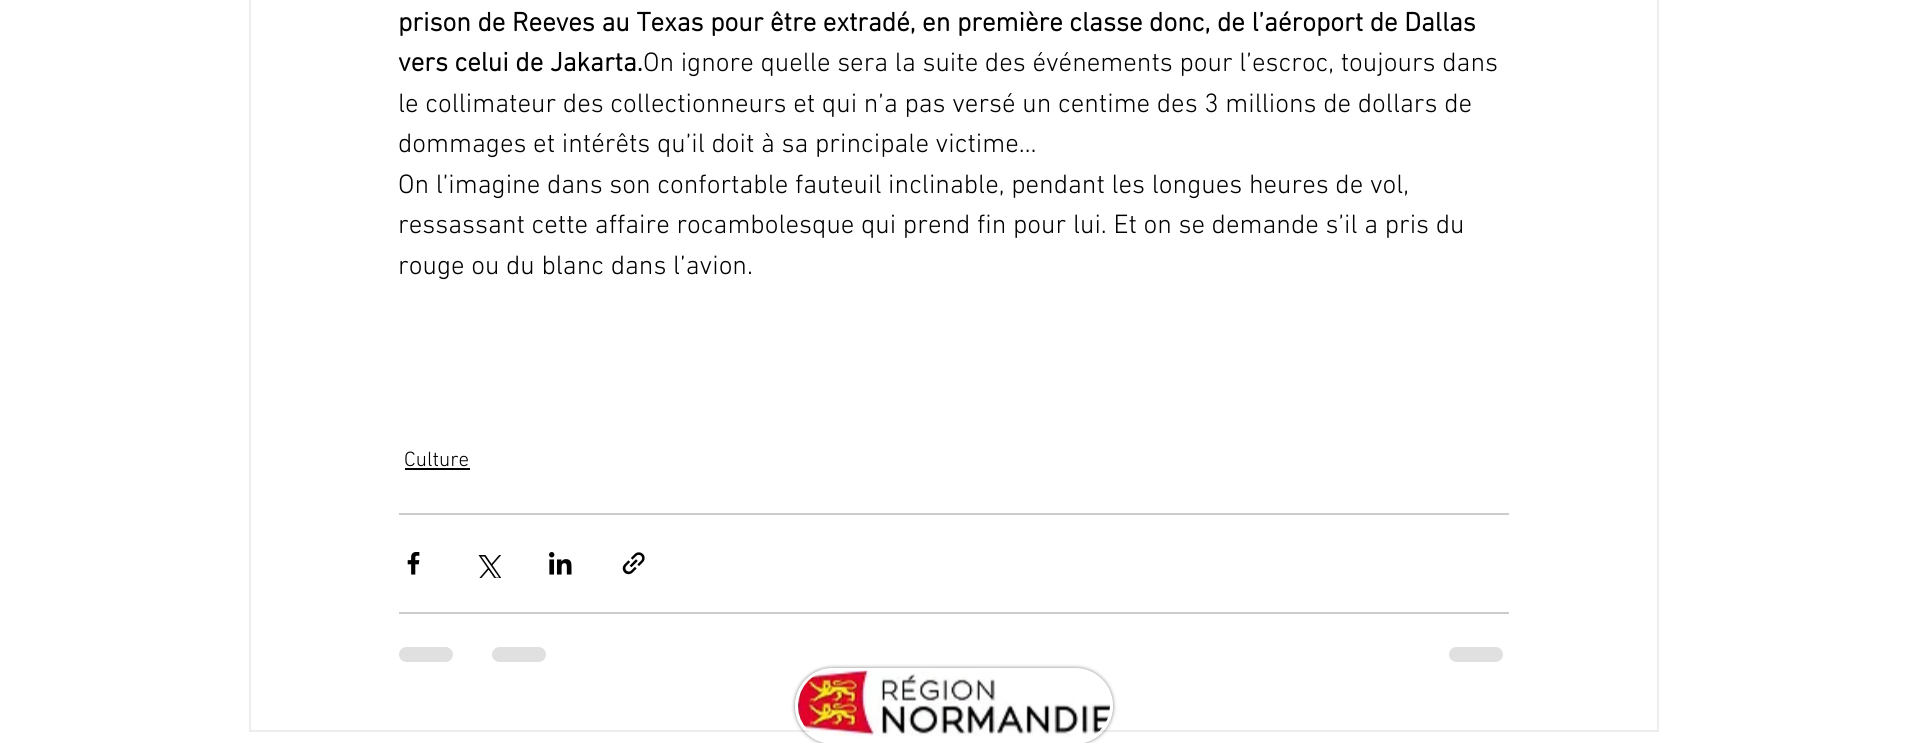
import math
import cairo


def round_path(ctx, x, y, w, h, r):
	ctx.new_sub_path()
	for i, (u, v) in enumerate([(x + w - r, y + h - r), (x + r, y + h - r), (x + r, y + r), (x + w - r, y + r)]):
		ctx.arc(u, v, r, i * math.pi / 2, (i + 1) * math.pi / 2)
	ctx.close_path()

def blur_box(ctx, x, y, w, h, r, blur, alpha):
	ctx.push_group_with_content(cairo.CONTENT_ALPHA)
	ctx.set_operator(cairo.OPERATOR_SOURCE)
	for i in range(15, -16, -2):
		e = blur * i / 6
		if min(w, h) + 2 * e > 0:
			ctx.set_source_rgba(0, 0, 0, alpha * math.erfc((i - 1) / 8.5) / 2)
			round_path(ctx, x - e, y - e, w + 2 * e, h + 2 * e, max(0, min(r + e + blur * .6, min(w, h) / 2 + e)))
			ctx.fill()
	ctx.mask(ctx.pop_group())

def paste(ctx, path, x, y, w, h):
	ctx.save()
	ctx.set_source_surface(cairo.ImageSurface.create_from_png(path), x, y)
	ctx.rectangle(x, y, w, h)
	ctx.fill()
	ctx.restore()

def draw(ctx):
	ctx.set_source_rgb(1, 1, 1)
	ctx.paint()
	ctx.rectangle(250, -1, 1408, 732)
	ctx.set_source_rgb(0.933, 0.925, 0.925)
	ctx.stroke()
	ctx.select_font_face('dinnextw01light', cairo.FONT_SLANT_NORMAL, cairo.FONT_WEIGHT_BOLD)
	ctx.set_font_size(27)
	ctx.set_source_rgb(0, 0, 0)
	ctx.move_to(398, 31)
	ctx.show_text('prison de Reeves au Texas pour être extradé, en première classe donc, de l’aéroport de Dallas')
	ctx.move_to(398, 71)
	ctx.show_text('vers celui de Jakarta.')
	ctx.select_font_face('dinnextw01light Light')
	for x, y, s in [
		(643, 71, 'On ignore quelle sera la suite des événements pour l’escroc, toujours dans'),
		(398, 112, 'le collimateur des collectionneurs et qui n’a pas versé un centime des 3 millions de dollars de'),
		(398, 152, 'dommages et intérêts qu’il doit à sa principale victime…'),
		(398, 193, 'On l’imagine dans son confortable fauteuil inclinable, pendant les longues heures de vol,'),
		(398, 233, 'ressassant cette affaire rocambolesque qui prend fin pour lui. Et on se demande s’il a pris du'),
		(398, 274, 'rouge ou du blanc dans l’avion.'),
	]:
		ctx.move_to(x, y)
		ctx.show_text(s)
	ctx.set_font_size(21)
	ctx.move_to(404, 466)
	ctx.show_text('Culture')
	ctx.rectangle(405, 468, 65, 2)
	ctx.fill()
	ctx.set_source_rgb(0.8, 0.8, 0.8)
	ctx.rectangle(399, 513, 1110, 2)
	ctx.fill()
	paste(ctx, 'media/1.png', 407, 552, 13, 23)
	paste(ctx, 'media/2.png', 478, 555, 23, 23)
	paste(ctx, 'media/3.png', 549, 552, 23, 23)
	paste(ctx, 'media/4.png', 622, 552, 23, 23)
	ctx.rectangle(399, 612, 1110, 2)
	ctx.fill()
	ctx.set_source_rgb(0.878, 0.878, 0.878)
	round_path(ctx, 399, 647, 54, 15, 7.5)
	ctx.fill()
	round_path(ctx, 492, 647, 54, 15, 7.5)
	ctx.fill()
	round_path(ctx, 1449, 647, 54, 15, 7.5)
	ctx.fill()
	ctx.save()
	ctx.set_fill_rule(cairo.FILL_RULE_EVEN_ODD)
	ctx.new_path()
	ctx.move_to(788, 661)
	ctx.line_to(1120, 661)
	ctx.line_to(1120, 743)
	ctx.line_to(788, 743)
	ctx.close_path()
	ctx.move_to(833, 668)
	ctx.line_to(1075, 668)
	ctx.curve_to(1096, 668, 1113, 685, 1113, 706)
	ctx.curve_to(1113, 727, 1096, 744, 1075, 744)
	ctx.line_to(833, 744)
	ctx.curve_to(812, 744, 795, 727, 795, 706)
	ctx.curve_to(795, 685, 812, 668, 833, 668)
	ctx.close_path()
	ctx.clip()
	ctx.set_source_rgb(0, 0, 0)
	blur_box(ctx, 795, 668, 318, 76, 38, 2, 0.5)
	ctx.restore()
	paste(ctx, 'media/5.png', 798, 670, 312, 67)


surface = cairo.ImageSurface(cairo.FORMAT_RGB24, 1906, 743)
ctx = cairo.Context(surface)
options = cairo.FontOptions()
options.set_hint_metrics(cairo.HINT_METRICS_OFF)
options.set_hint_style(cairo.HINT_STYLE_NONE)
ctx.set_font_options(options)
ctx.set_miter_limit(4)
draw(ctx)
surface.write_to_png('image.png')
